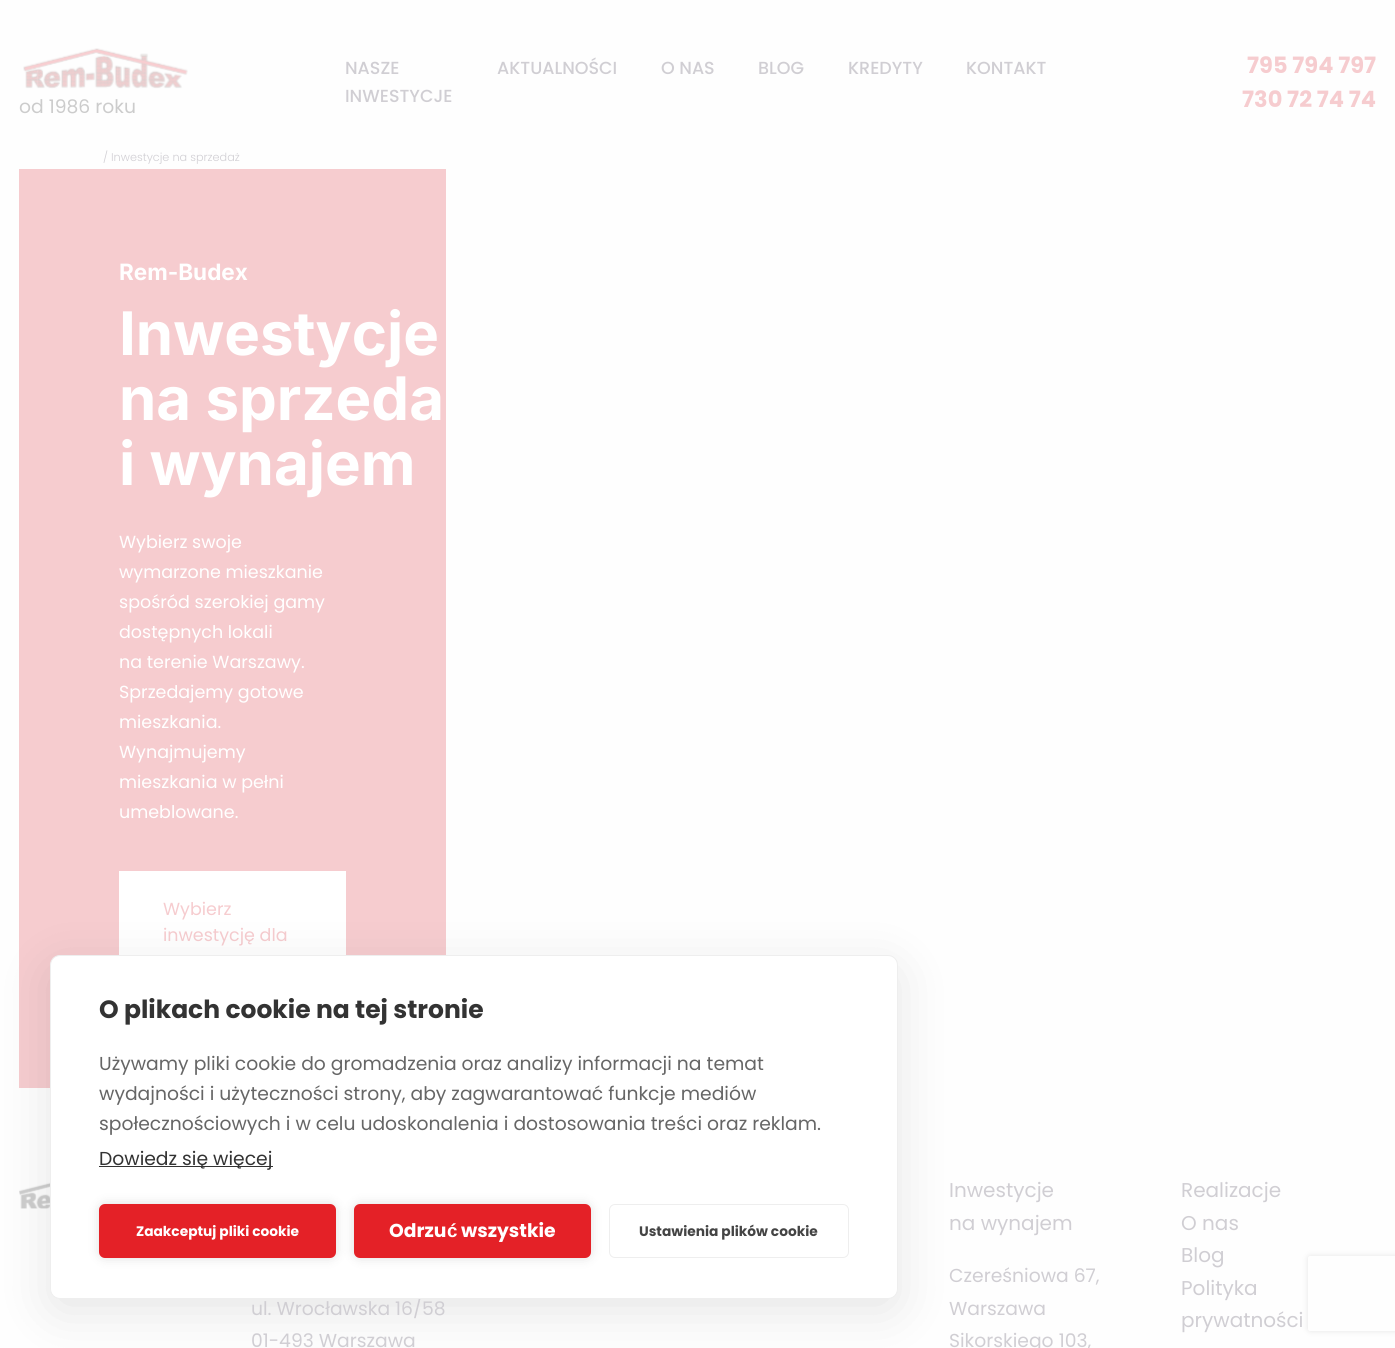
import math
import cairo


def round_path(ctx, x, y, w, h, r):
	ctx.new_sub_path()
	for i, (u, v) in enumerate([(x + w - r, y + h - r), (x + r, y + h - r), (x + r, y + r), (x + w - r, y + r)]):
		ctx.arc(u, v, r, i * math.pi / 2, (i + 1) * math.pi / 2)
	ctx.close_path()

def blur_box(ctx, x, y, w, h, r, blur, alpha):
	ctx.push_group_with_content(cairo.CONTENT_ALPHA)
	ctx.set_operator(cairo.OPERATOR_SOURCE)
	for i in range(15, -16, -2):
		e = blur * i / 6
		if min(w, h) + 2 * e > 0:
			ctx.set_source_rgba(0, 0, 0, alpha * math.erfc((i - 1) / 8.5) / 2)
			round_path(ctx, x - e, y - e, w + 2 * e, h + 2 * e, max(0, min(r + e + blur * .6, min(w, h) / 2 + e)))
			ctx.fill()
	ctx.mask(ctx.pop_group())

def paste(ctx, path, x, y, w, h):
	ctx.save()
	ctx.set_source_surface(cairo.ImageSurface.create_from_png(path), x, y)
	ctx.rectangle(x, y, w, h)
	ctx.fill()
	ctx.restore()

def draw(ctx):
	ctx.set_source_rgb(0.996, 0.996, 0.996)
	ctx.paint()
	ctx.select_font_face('Poppins Medium')
	ctx.set_font_size(17.5)
	ctx.set_source_rgb(0.816, 0.808, 0.827)
	for x, y, s in [
		(345, 74, 'NASZE'),
		(345, 102, 'INWESTYCJE'),
		(497, 74, 'AKTUALNOŚCI'),
		(661, 74, 'O NAS'),
		(758, 74, 'BLOG'),
		(848, 74, 'KREDYTY'),
		(966, 74, 'KONTAKT'),
	]:
		ctx.move_to(x, y)
		ctx.show_text(s)
	ctx.select_font_face('Poppins', cairo.FONT_SLANT_NORMAL, cairo.FONT_WEIGHT_BOLD)
	ctx.set_font_size(22.5)
	ctx.set_source_rgb(0.961, 0.8, 0.812)
	ctx.move_to(1247, 73)
	ctx.show_text('795 794 797')
	ctx.move_to(1242, 107)
	ctx.show_text('730 72 74 74')
	paste(ctx, 'media/1.png', 23, 48, 165, 41)
	ctx.select_font_face('Poppins')
	ctx.set_font_size(18.75)
	ctx.set_source_rgb(0.8, 0.8, 0.8)
	ctx.move_to(19, 113)
	ctx.show_text('od 1986 roku')
	ctx.select_font_face('Poppins Light')
	ctx.set_font_size(11.25)
	ctx.set_source_rgb(0.816, 0.808, 0.827)
	ctx.move_to(103, 161)
	ctx.show_text('/ Inwestycje na sprzedaż')
	ctx.set_source_rgb(0.961, 0.8, 0.812)
	ctx.rectangle(19, 169, 427, 919)
	ctx.fill()
	ctx.select_font_face('Inter', cairo.FONT_SLANT_NORMAL, cairo.FONT_WEIGHT_BOLD)
	ctx.set_font_size(22.5)
	ctx.set_source_rgb(1, 1, 1)
	ctx.move_to(119, 280)
	ctx.show_text('Rem-Budex')
	ctx.set_font_size(60)
	for x, y, s in [
		(119, 355, 'Inwestycje'),
		(119, 420, 'na sprzeda'),
		(119, 485, 'i wynajem'),
	]:
		ctx.move_to(x, y)
		ctx.show_text(s)
	ctx.select_font_face('Poppins')
	ctx.set_font_size(17.5)
	for x, y, s in [
		(119, 548, 'Wybierz swoje'),
		(119, 578, 'wymarzone mieszkanie'),
		(119, 608, 'spośród szerokiej gamy'),
		(119, 638, 'dostępnych lokali'),
		(119, 668, 'na terenie Warszawy.'),
		(119, 698, 'Sprzedajemy gotowe'),
		(119, 728, 'mieszkania.'),
		(119, 758, 'Wynajmujemy'),
		(119, 788, 'mieszkania w pełni'),
		(119, 818, 'umeblowane.'),
	]:
		ctx.move_to(x, y)
		ctx.show_text(s)
	ctx.rectangle(119, 871, 227, 84)
	ctx.fill()
	ctx.set_source_rgb(0.961, 0.8, 0.812)
	ctx.move_to(163, 915)
	ctx.show_text('Wybierz')
	ctx.move_to(163, 941)
	ctx.show_text('inwestycję dla')
	paste(ctx, 'media/2.png', 19, 1182, 31, 27)
	ctx.set_source_rgb(0, 0, 0)
	blur_box(ctx, 50, 968, 848, 343, 10, 25, 0.1)
	ctx.set_font_size(18.75)
	ctx.set_source_rgb(0.816, 0.808, 0.827)
	ctx.move_to(251, 1315)
	ctx.show_text('ul. Wrocławska 16/58')
	ctx.set_source_rgb(1, 1, 1)
	round_path(ctx, 50.5, 955.5, 847, 343, 9.5)
	ctx.fill_preserve()
	ctx.set_source_rgb(0.933, 0.933, 0.933)
	ctx.set_line_width(1)
	ctx.stroke()
	ctx.select_font_face('Poppins', cairo.FONT_SLANT_NORMAL, cairo.FONT_WEIGHT_BOLD)
	ctx.set_font_size(25)
	ctx.set_source_rgb(0.2, 0.2, 0.2)
	ctx.move_to(99, 1018)
	ctx.show_text('O plikach cookie na tej stronie')
	ctx.select_font_face('Poppins')
	ctx.set_font_size(18.75)
	ctx.set_source_rgb(0.4, 0.4, 0.4)
	for x, y, s in [
		(99, 1070, 'Używamy pliki cookie do gromadzenia oraz analizy informacji na temat'),
		(99, 1100, 'wydajności i użyteczności strony, aby zagwarantować funkcje mediów'),
		(99, 1130, 'społecznościowych i w celu udoskonalenia i dostosowania treści oraz reklam.'),
	]:
		ctx.move_to(x, y)
		ctx.show_text(s)
	ctx.set_source_rgb(0.2, 0.2, 0.2)
	ctx.rectangle(99, 1166, 174, 1)
	ctx.fill()
	ctx.move_to(99, 1165)
	ctx.show_text('Dowiedz się więcej')
	ctx.set_source_rgb(0, 0, 0)
	blur_box(ctx, 99, 1204, 237, 54, 6, 6, 0.12)
	ctx.set_source_rgb(0.894, 0.129, 0.153)
	round_path(ctx, 99, 1204, 237, 54, 6)
	ctx.fill()
	ctx.select_font_face('Poppins', cairo.FONT_SLANT_NORMAL, cairo.FONT_WEIGHT_BOLD)
	ctx.set_font_size(13.75)
	ctx.set_source_rgb(1, 1, 1)
	ctx.move_to(136, 1236)
	ctx.show_text('Zaakceptuj pliki cookie')
	ctx.set_source_rgb(0, 0, 0)
	blur_box(ctx, 354, 1204, 237, 54, 6, 6, 0.12)
	ctx.set_source_rgb(0.894, 0.129, 0.153)
	round_path(ctx, 354, 1204, 237, 54, 6)
	ctx.fill()
	ctx.set_font_size(18.75)
	ctx.set_source_rgb(1, 1, 1)
	ctx.move_to(389, 1237)
	ctx.show_text('Odrzu')
	ctx.select_font_face('Liberation Sans', cairo.FONT_SLANT_NORMAL, cairo.FONT_WEIGHT_BOLD)
	ctx.move_to(447, 1237)
	ctx.show_text('ć')
	ctx.select_font_face('Poppins', cairo.FONT_SLANT_NORMAL, cairo.FONT_WEIGHT_BOLD)
	ctx.move_to(461, 1237)
	ctx.show_text('wszystkie')
	round_path(ctx, 609.5, 1204.5, 239, 53, 5.5)
	ctx.set_source_rgb(0.933, 0.933, 0.933)
	ctx.stroke()
	ctx.set_font_size(13.75)
	ctx.set_source_rgb(0.267, 0.267, 0.267)
	ctx.move_to(639, 1236)
	ctx.show_text('Ustawienia plików cookie')
	ctx.select_font_face('Poppins')
	ctx.set_font_size(20)
	ctx.set_source_rgb(0.816, 0.808, 0.827)
	ctx.move_to(949, 1197)
	ctx.show_text('Inwestycje')
	ctx.move_to(949, 1230)
	ctx.show_text('na wynajem')
	ctx.set_font_size(18.75)
	for x, y, s in [
		(949, 1282, 'Czereśniowa 67,'),
		(949, 1315, 'Warszawa'),
		(949, 1347, 'Sikorskiego 103,'),
	]:
		ctx.move_to(x, y)
		ctx.show_text(s)
	ctx.set_font_size(20)
	for x, y, s in [
		(1181, 1197, 'Realizacje'),
		(1181, 1230, 'O nas'),
		(1181, 1262, 'Blog'),
		(1181, 1295, 'Polityka'),
		(1181, 1327, 'prywatności'),
	]:
		ctx.move_to(x, y)
		ctx.show_text(s)
	ctx.set_font_size(18.75)
	ctx.move_to(251, 1347)
	ctx.show_text('01-493 Warszawa')
	ctx.save()
	ctx.set_fill_rule(cairo.FILL_RULE_EVEN_ODD)
	ctx.new_path()
	ctx.move_to(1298, 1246)
	ctx.line_to(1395, 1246)
	ctx.line_to(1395, 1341)
	ctx.line_to(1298, 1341)
	ctx.close_path()
	ctx.move_to(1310.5, 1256)
	ctx.line_to(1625.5, 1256)
	ctx.curve_to(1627, 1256, 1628, 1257, 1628, 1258.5)
	ctx.line_to(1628, 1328.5)
	ctx.curve_to(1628, 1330, 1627, 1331, 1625.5, 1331)
	ctx.line_to(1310.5, 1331)
	ctx.curve_to(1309, 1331, 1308, 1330, 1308, 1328.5)
	ctx.line_to(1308, 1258.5)
	ctx.curve_to(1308, 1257, 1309, 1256, 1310.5, 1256)
	ctx.close_path()
	ctx.clip()
	ctx.set_source_rgb(0.902, 0.902, 0.902)
	blur_box(ctx, 1308, 1256, 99, 75, 2.5, 3, 1)
	ctx.restore()


surface = cairo.ImageSurface(cairo.FORMAT_RGB24, 1395, 1348)
ctx = cairo.Context(surface)
options = cairo.FontOptions()
options.set_hint_metrics(cairo.HINT_METRICS_OFF)
options.set_hint_style(cairo.HINT_STYLE_NONE)
ctx.set_font_options(options)
ctx.set_miter_limit(4)
draw(ctx)
surface.write_to_png('image.png')
